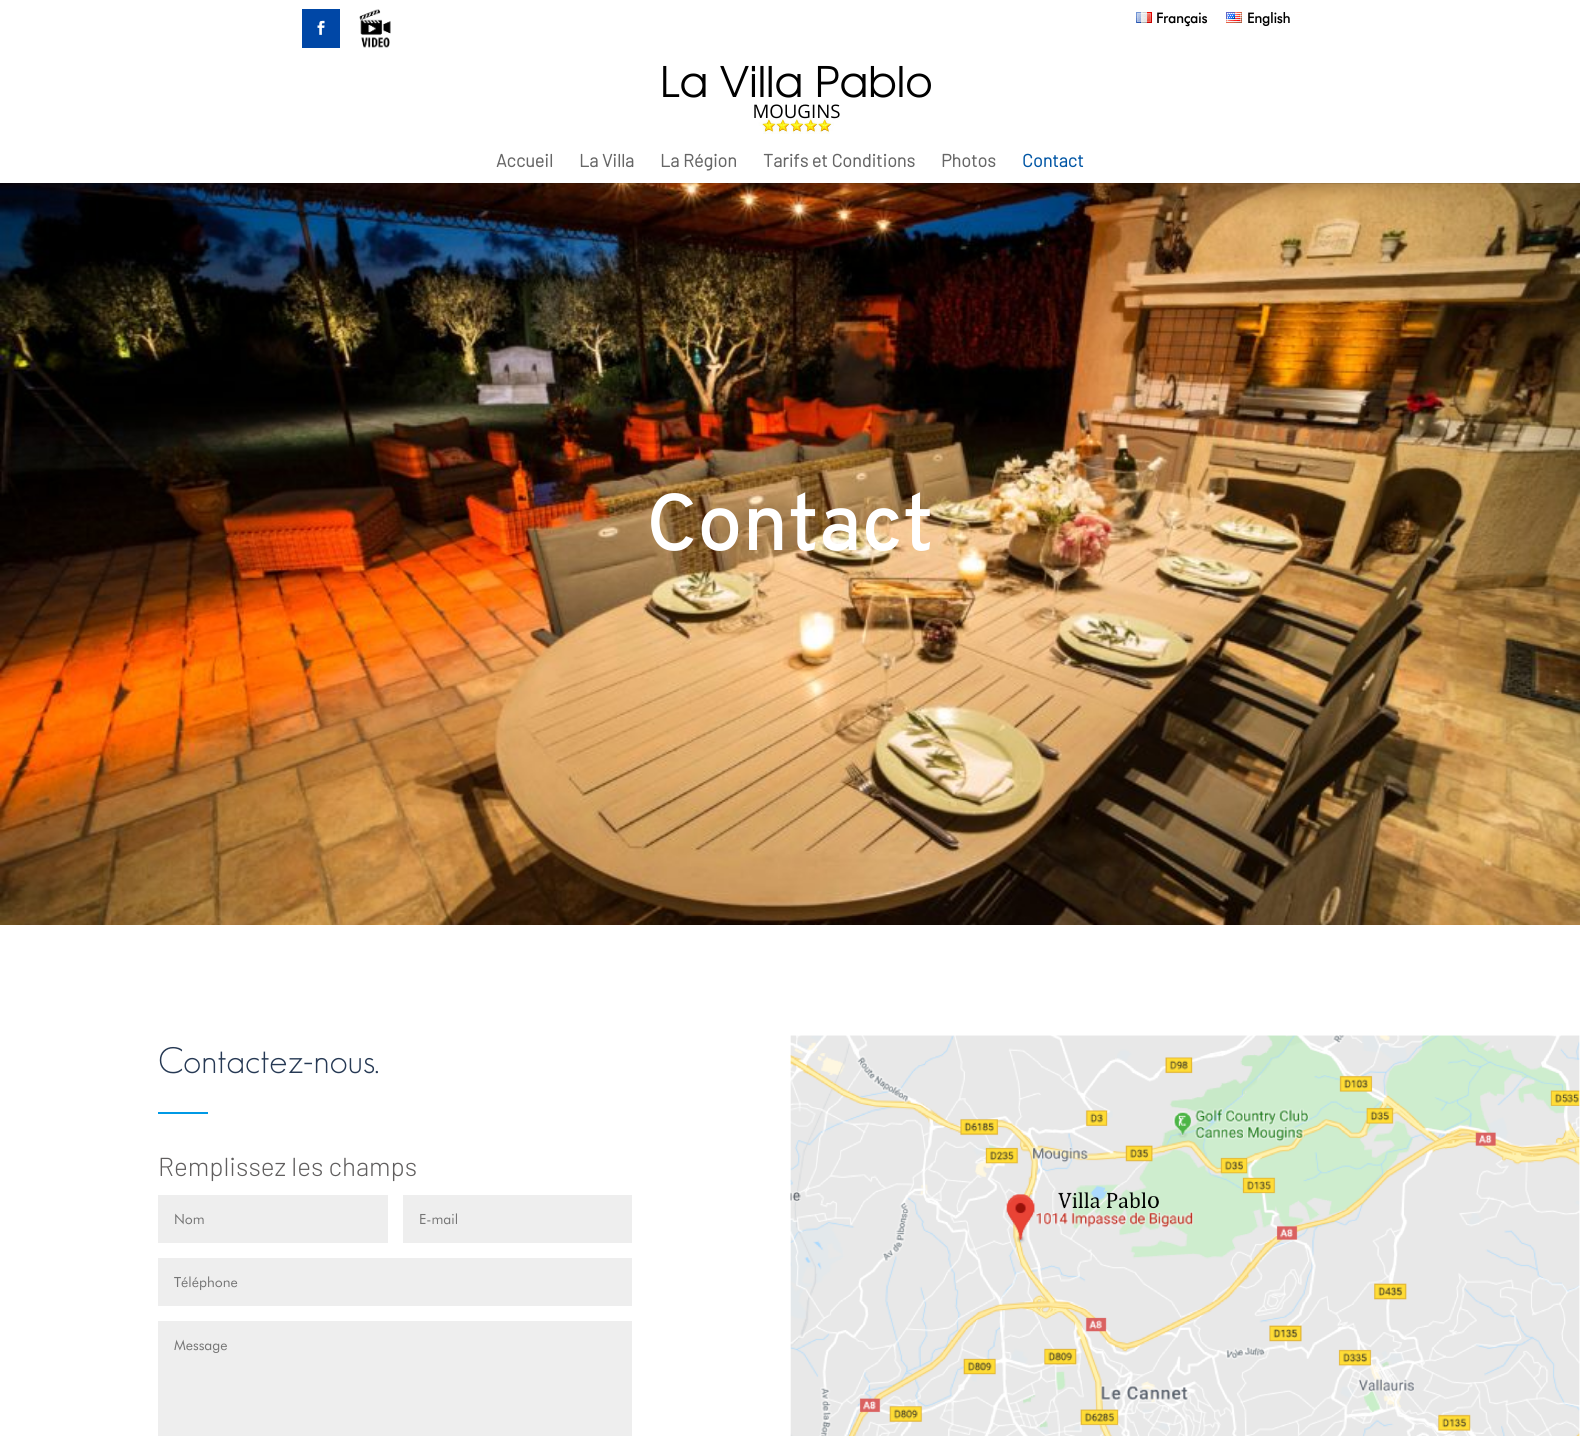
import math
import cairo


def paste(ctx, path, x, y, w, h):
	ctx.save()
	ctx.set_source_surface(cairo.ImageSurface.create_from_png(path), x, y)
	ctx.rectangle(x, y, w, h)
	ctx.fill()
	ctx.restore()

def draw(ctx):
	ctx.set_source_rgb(1, 1, 1)
	ctx.paint()
	ctx.set_source_rgb(0, 0.278, 0.651)
	ctx.rectangle(302, 9, 38, 39)
	ctx.fill()
	paste(ctx, 'media/1.png', 317, 20, 8, 15)
	paste(ctx, 'media/2.png', 359, 9, 32, 39)
	paste(ctx, 'media/3.png', 1136, 12, 16, 11)
	ctx.select_font_face('Futura', cairo.FONT_SLANT_NORMAL, cairo.FONT_WEIGHT_BOLD)
	ctx.set_font_size(14)
	ctx.set_source_rgb(0, 0, 0)
	ctx.move_to(1156, 23)
	ctx.show_text('Français')
	paste(ctx, 'media/4.png', 1226, 12, 16, 11)
	ctx.move_to(1247, 23)
	ctx.show_text('English')
	paste(ctx, 'media/6.png', 0, 183, 1580, 742)
	ctx.set_source_rgba(0, 0, 0, 0.1)
	ctx.rectangle(82, 183, 1498, 1)
	ctx.fill()
	paste(ctx, 'media/5.png', 663, 65, 268, 69)
	ctx.select_font_face('Barlow', cairo.FONT_SLANT_NORMAL, cairo.FONT_WEIGHT_BOLD)
	ctx.set_font_size(18)
	ctx.set_source_rgb(0.4, 0.4, 0.4)
	for x, y, s in [
		(496, 167, 'Accueil'),
		(579, 167, 'La Villa'),
		(660, 167, 'La Région'),
		(763, 167, 'Tarifs et Conditions'),
		(941, 167, 'Photos'),
	]:
		ctx.move_to(x, y)
		ctx.show_text(s)
	ctx.set_source_rgb(0, 0.333, 0.643)
	ctx.move_to(1022, 167)
	ctx.show_text('Contact')
	ctx.select_font_face('Overpass Medium')
	ctx.set_font_size(80)
	ctx.set_source_rgb(1, 1, 1)
	ctx.move_to(646, 550)
	ctx.show_text('Contact')
	ctx.select_font_face('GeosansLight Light')
	ctx.set_font_size(36)
	ctx.set_source_rgb(0.149, 0.224, 0.329)
	ctx.move_to(158, 1073)
	ctx.show_text('Contactez-nous.')
	ctx.set_source_rgb(0, 0.6, 0.898)
	ctx.rectangle(158, 1112, 50, 2)
	ctx.fill()
	ctx.select_font_face('Barlow Light')
	ctx.set_font_size(26)
	ctx.set_source_rgb(0.376, 0.369, 0.369)
	ctx.move_to(158, 1176)
	ctx.show_text('Remplissez les champs')
	ctx.set_source_rgb(0.933, 0.933, 0.933)
	ctx.rectangle(158, 1195, 230, 48)
	ctx.fill()
	ctx.select_font_face('Futura')
	ctx.set_font_size(14)
	ctx.set_source_rgb(0.459, 0.459, 0.459)
	ctx.move_to(174, 1224)
	ctx.show_text('Nom')
	ctx.set_source_rgb(0.933, 0.933, 0.933)
	ctx.rectangle(403, 1195, 229, 48)
	ctx.fill()
	ctx.set_source_rgb(0.459, 0.459, 0.459)
	ctx.move_to(419, 1224)
	ctx.show_text('E-mail')
	ctx.set_source_rgb(0.933, 0.933, 0.933)
	ctx.rectangle(158, 1258, 474, 48)
	ctx.fill()
	ctx.set_source_rgb(0.459, 0.459, 0.459)
	ctx.move_to(174, 1287)
	ctx.show_text('Téléphone')
	ctx.set_source_rgb(0.933, 0.933, 0.933)
	ctx.rectangle(158, 1321, 474, 115)
	ctx.fill()
	ctx.set_source_rgb(0.459, 0.459, 0.459)
	ctx.move_to(174, 1350)
	ctx.show_text('Message')
	paste(ctx, 'media/7.png', 790, 1035, 790, 401)


surface = cairo.ImageSurface(cairo.FORMAT_RGB24, 1580, 1436)
ctx = cairo.Context(surface)
options = cairo.FontOptions()
options.set_hint_metrics(cairo.HINT_METRICS_OFF)
options.set_hint_style(cairo.HINT_STYLE_NONE)
ctx.set_font_options(options)
ctx.set_miter_limit(4)
draw(ctx)
surface.write_to_png('image.png')
